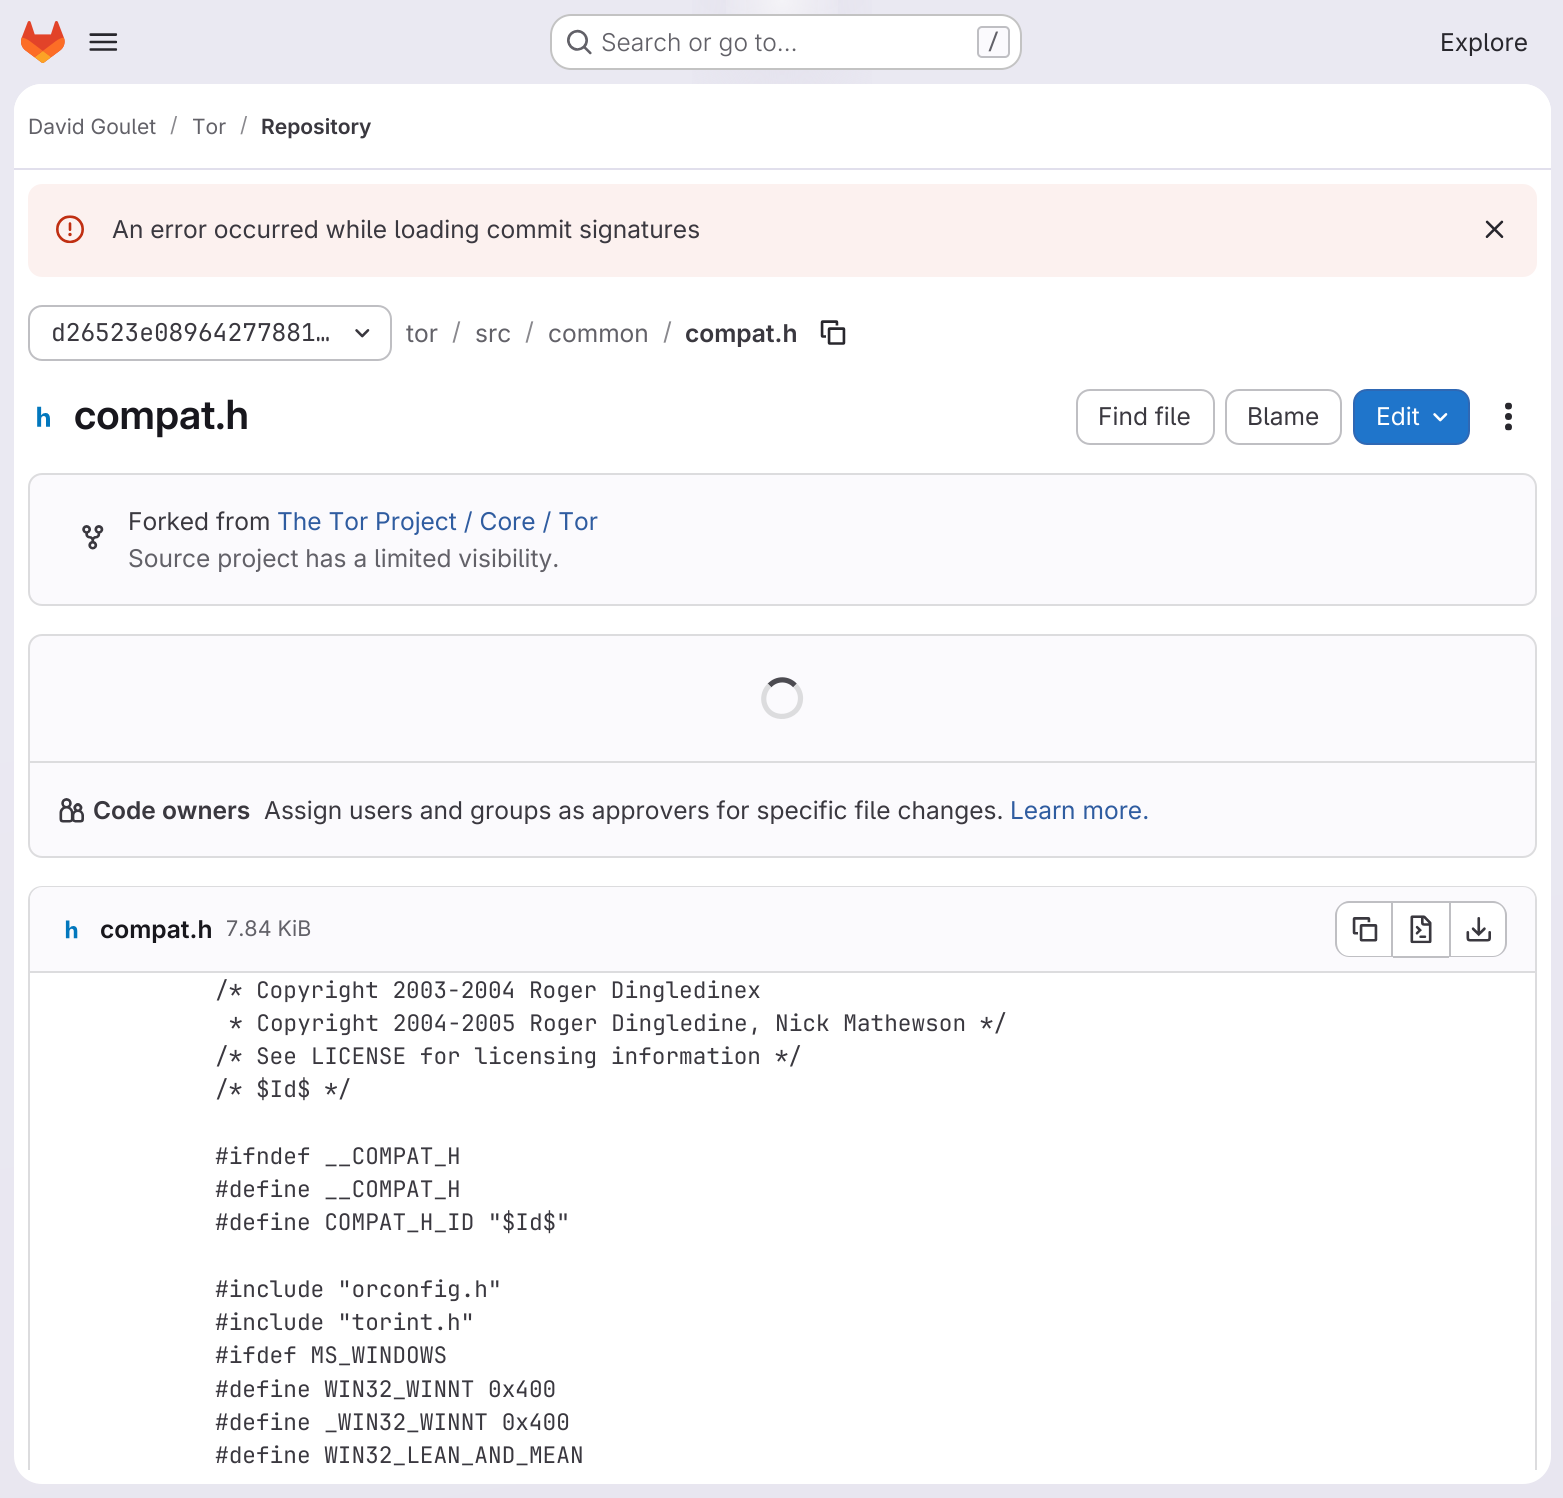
import math
import cairo


def round_path(ctx, x, y, w, h, r):
	ctx.new_sub_path()
	for i, (u, v) in enumerate([(x + w - r, y + h - r), (x + r, y + h - r), (x + r, y + r), (x + w - r, y + r)]):
		ctx.arc(u, v, r, i * math.pi / 2, (i + 1) * math.pi / 2)
	ctx.close_path()

def paste(ctx, path, x, y, w, h):
	ctx.save()
	ctx.set_source_surface(cairo.ImageSurface.create_from_png(path), x, y)
	ctx.rectangle(x, y, w, h)
	ctx.fill()
	ctx.restore()

def draw(ctx):
	ctx.set_source_rgb(1, 1, 1)
	ctx.paint()
	gradient = cairo.LinearGradient(934, 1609, 631, -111)
	gradient.add_color_stop_rgba(0, 0.91, 0.902, 0.941, 1)
	gradient.add_color_stop_rgba(0.7, 0.918, 0.914, 0.949, 1)
	ctx.set_source(gradient)
	ctx.rectangle(0, 0, 1563, 1498)
	ctx.fill()
	gradient = cairo.RadialGradient(0, 0, 0, 0, 0, 1)
	gradient.set_matrix(cairo.Matrix(1 / 782, 0, 0, 1 / 1498, -1 * 782 / 782, -1 * 0 / 1498))
	gradient.add_color_stop_rgba(0, 0.894, 0.886, 0.929, 1)
	gradient.add_color_stop_rgba(0.16, 0.894, 0.886, 0.929, 0)
	ctx.set_source(gradient)
	ctx.rectangle(692, 0, 180, 84)
	ctx.fill()
	gradient = cairo.RadialGradient(0, 0, 0, 0, 0, 1)
	gradient.set_matrix(cairo.Matrix(1 / 782, 0, 0, 1 / 1498, -1 * 782 / 782, -1 * 0 / 1498))
	gradient.add_color_stop_rgba(0, 0.894, 0.886, 0.925, 1)
	gradient.add_color_stop_rgba(0.11, 0.894, 0.886, 0.925, 0)
	ctx.set_source(gradient)
	ctx.rectangle(746, 0, 72, 67)
	ctx.fill()
	gradient = cairo.RadialGradient(782, 0, 0, 782, 0, 1690)
	gradient.add_color_stop_rgba(0, 1, 1, 1, 0.6)
	gradient.add_color_stop_rgba(0.04, 1, 1, 1, 0)
	ctx.set_source(gradient)
	ctx.rectangle(726, 0, 112, 14)
	ctx.fill()
	paste(ctx, 'media/1.png', 21, 21, 44, 42)
	paste(ctx, 'media/2.png', 89, 33, 29, 18)
	ctx.set_source_rgb(1, 1, 1)
	round_path(ctx, 550, 14, 472, 56, 21)
	ctx.fill()
	round_path(ctx, 551, 15, 470, 54, 20)
	ctx.set_source_rgba(0.02, 0.02, 0.024, 0.24)
	ctx.stroke()
	paste(ctx, 'media/3.png', 567, 29, 25, 26)
	ctx.select_font_face('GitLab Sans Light')
	ctx.set_font_size(24.5)
	ctx.set_source_rgb(0.384, 0.38, 0.408)
	ctx.move_to(601, 51)
	ctx.show_text('Search or go to…')
	ctx.set_source_rgb(0.984, 0.98, 0.992)
	round_path(ctx, 978, 27, 31, 30, 4)
	ctx.fill_preserve()
	ctx.set_source_rgb(0.749, 0.749, 0.765)
	ctx.stroke()
	ctx.select_font_face('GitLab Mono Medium')
	ctx.set_font_size(21)
	ctx.set_source_rgb(0.384, 0.38, 0.408)
	ctx.move_to(987, 49)
	ctx.show_text('/')
	ctx.select_font_face('GitLab Sans')
	ctx.set_font_size(24.5)
	ctx.set_source_rgb(0.157, 0.153, 0.176)
	ctx.move_to(1440, 51)
	ctx.show_text('Explore')
	ctx.set_source_rgb(1, 1, 1)
	round_path(ctx, 14, 84, 1537, 1400, 28)
	ctx.fill()
	ctx.new_path()
	ctx.move_to(42, 84)
	ctx.line_to(1523, 84)
	ctx.curve_to(1538.5, 84, 1551, 96.5, 1551, 112)
	ctx.line_to(1551, 170)
	ctx.line_to(14, 170)
	ctx.line_to(14, 112)
	ctx.curve_to(14, 96.5, 26.5, 84, 42, 84)
	ctx.close_path()
	ctx.fill()
	ctx.set_source_rgb(0.882, 0.875, 0.925)
	ctx.rectangle(14, 168, 1537, 2)
	ctx.fill()
	ctx.set_font_size(21)
	ctx.set_source_rgb(0.384, 0.38, 0.408)
	ctx.move_to(28, 134)
	ctx.show_text('David Goulet')
	ctx.set_source_rgb(0.537, 0.533, 0.553)
	ctx.move_to(170, 132)
	ctx.show_text('/')
	ctx.set_source_rgb(0.384, 0.38, 0.408)
	ctx.move_to(192, 134)
	ctx.show_text('Tor')
	ctx.set_source_rgb(0.537, 0.533, 0.553)
	ctx.move_to(240, 132)
	ctx.show_text('/')
	ctx.select_font_face('GitLab Sans SemiBold')
	ctx.set_source_rgb(0.227, 0.22, 0.247)
	ctx.move_to(261, 134)
	ctx.show_text('Repository')
	ctx.set_source_rgb(0.988, 0.945, 0.937)
	round_path(ctx, 28, 184, 1509, 93, 14)
	ctx.fill()
	paste(ctx, 'media/4.png', 56, 215, 28, 29)
	ctx.select_font_face('GitLab Sans')
	ctx.set_font_size(24.5)
	ctx.set_source_rgb(0.227, 0.22, 0.247)
	ctx.move_to(112, 238)
	ctx.show_text('An error occurred while loading commit signatures')
	paste(ctx, 'media/5.png', 1485, 220, 19, 18)
	round_path(ctx, 29, 306, 362, 54, 13)
	ctx.set_source_rgb(0.749, 0.749, 0.765)
	ctx.stroke()
	ctx.select_font_face('GitLab Mono')
	ctx.set_source_rgb(0.227, 0.22, 0.247)
	ctx.move_to(51, 341)
	ctx.show_text('d26523e08964277881…')
	paste(ctx, 'media/6.png', 355, 329, 15, 9)
	ctx.select_font_face('GitLab Sans')
	ctx.set_source_rgb(0.384, 0.38, 0.408)
	ctx.move_to(406, 342)
	ctx.show_text('tor')
	ctx.set_source_rgb(0.537, 0.533, 0.553)
	ctx.move_to(452, 340)
	ctx.show_text('/')
	ctx.set_source_rgb(0.384, 0.38, 0.408)
	ctx.move_to(475, 342)
	ctx.show_text('src')
	ctx.set_source_rgb(0.537, 0.533, 0.553)
	ctx.move_to(525, 340)
	ctx.show_text('/')
	ctx.set_source_rgb(0.384, 0.38, 0.408)
	ctx.move_to(548, 342)
	ctx.show_text('common')
	ctx.set_source_rgb(0.537, 0.533, 0.553)
	ctx.move_to(663, 340)
	ctx.show_text('/')
	ctx.select_font_face('GitLab Sans SemiBold')
	ctx.set_source_rgb(0.227, 0.22, 0.247)
	ctx.move_to(685, 342)
	ctx.show_text('compat.h')
	paste(ctx, 'media/7.png', 820, 320, 26, 25)
	paste(ctx, 'media/8.png', 37, 406, 13, 21)
	ctx.select_font_face('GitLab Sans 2 SemiBold')
	ctx.set_font_size(40.25)
	ctx.set_source_rgb(0.094, 0.09, 0.114)
	ctx.move_to(74, 429)
	ctx.show_text('compat.h')
	round_path(ctx, 1077, 390, 137, 54, 13)
	ctx.set_source_rgb(0.749, 0.749, 0.765)
	ctx.stroke()
	ctx.select_font_face('GitLab Sans')
	ctx.set_font_size(24.5)
	ctx.set_source_rgb(0.227, 0.22, 0.247)
	ctx.move_to(1098, 425)
	ctx.show_text('Find file')
	round_path(ctx, 1226, 390, 115, 54, 13)
	ctx.set_source_rgb(0.749, 0.749, 0.765)
	ctx.stroke()
	ctx.set_source_rgb(0.227, 0.22, 0.247)
	ctx.move_to(1247, 425)
	ctx.show_text('Blame')
	ctx.set_source_rgb(0.122, 0.459, 0.796)
	round_path(ctx, 1354, 390, 115, 54, 13)
	ctx.fill_preserve()
	ctx.set_source_rgb(0.184, 0.408, 0.706)
	ctx.stroke()
	ctx.set_source_rgb(1, 1, 1)
	ctx.move_to(1376, 425)
	ctx.show_text('Edit')
	paste(ctx, 'media/9.png', 1433, 413, 15, 9)
	paste(ctx, 'media/10.png', 1505, 402, 7, 29)
	ctx.set_source_rgb(0.984, 0.98, 0.992)
	round_path(ctx, 29, 474, 1507, 131, 13)
	ctx.fill_preserve()
	ctx.set_source_rgb(0.863, 0.863, 0.871)
	ctx.stroke()
	paste(ctx, 'media/11.png', 82, 525, 22, 25)
	ctx.set_source_rgb(0.227, 0.22, 0.247)
	ctx.move_to(128, 530)
	ctx.show_text('Forked from')
	ctx.set_source_rgb(0.184, 0.361, 0.627)
	ctx.move_to(277, 530)
	ctx.show_text('The Tor Project / Core / Tor')
	ctx.set_source_rgb(0.384, 0.38, 0.408)
	ctx.move_to(128, 567)
	ctx.show_text('Source project has a limited visibility.')
	ctx.set_source_rgb(0.984, 0.98, 0.992)
	round_path(ctx, 29, 635, 1507, 222, 13)
	ctx.fill_preserve()
	ctx.set_source_rgb(0.863, 0.863, 0.871)
	ctx.stroke()
	ctx.new_path()
	ctx.move_to(769.5, 685.5)
	ctx.curve_to(776.5, 678, 788, 678, 795, 685.5)
	ctx.set_source_rgb(0.298, 0.294, 0.318)
	ctx.set_line_width(5.2)
	ctx.stroke()
	ctx.new_path()
	ctx.move_to(795, 685.5)
	ctx.curve_to(798.5, 688.5, 800.5, 693.5, 800.5, 698)
	ctx.curve_to(800.5, 720, 768.5, 723.5, 764, 702)
	ctx.curve_to(763, 696, 765, 689.5, 769.5, 685.5)
	ctx.set_source_rgb(0.863, 0.863, 0.871)
	ctx.stroke()
	ctx.rectangle(30, 761, 1505, 2)
	ctx.fill()
	paste(ctx, 'media/12.png', 59, 798, 25, 25)
	ctx.select_font_face('GitLab Sans SemiBold')
	ctx.set_source_rgb(0.227, 0.22, 0.247)
	ctx.move_to(93, 819)
	ctx.show_text('Code owners')
	ctx.select_font_face('GitLab Sans')
	ctx.move_to(264, 819)
	ctx.show_text('Assign users and groups as approvers for specific file changes.')
	ctx.set_source_rgb(0.184, 0.361, 0.627)
	ctx.move_to(1010, 819)
	ctx.show_text('Learn more.')
	ctx.save()
	ctx.rectangle(14, 170, 1537, 1300)
	ctx.clip()
	ctx.set_source_rgb(0.863, 0.863, 0.871)
	ctx.new_path()
	ctx.move_to(42, 886)
	ctx.curve_to(34, 886, 28, 892, 28, 900)
	ctx.line_to(28, 1480)
	ctx.line_to(30, 1481)
	ctx.line_to(30, 900)
	ctx.curve_to(30, 893, 35, 888, 42, 888)
	ctx.line_to(1523, 888)
	ctx.curve_to(1530, 888, 1535, 893, 1535, 900)
	ctx.line_to(1535, 1481)
	ctx.line_to(1537, 1480)
	ctx.line_to(1537, 900)
	ctx.curve_to(1537, 892, 1531, 886, 1523, 886)
	ctx.close_path()
	ctx.fill()
	ctx.restore()
	ctx.set_source_rgb(0.984, 0.98, 0.992)
	ctx.new_path()
	ctx.move_to(42, 887)
	ctx.line_to(1523, 887)
	ctx.curve_to(1529.5, 887, 1535, 892.5, 1535, 899)
	ctx.line_to(1535, 973)
	ctx.line_to(30, 973)
	ctx.line_to(30, 899)
	ctx.curve_to(30, 892.5, 35.5, 887, 42, 887)
	ctx.close_path()
	ctx.fill()
	ctx.set_source_rgb(0.863, 0.863, 0.871)
	ctx.rectangle(30, 971, 1505, 2)
	ctx.fill()
	paste(ctx, 'media/13.png', 65, 920, 13, 19)
	ctx.select_font_face('GitLab Sans SemiBold')
	ctx.set_source_rgb(0.094, 0.09, 0.114)
	ctx.move_to(100, 938)
	ctx.show_text('compat.h')
	ctx.select_font_face('GitLab Sans')
	ctx.set_font_size(21.5)
	ctx.set_source_rgb(0.384, 0.38, 0.408)
	ctx.move_to(226, 936)
	ctx.show_text('7.84 KiB')
	ctx.set_source_rgb(1, 1, 1)
	ctx.new_path()
	ctx.move_to(1349, 903)
	ctx.line_to(1391, 903)
	ctx.line_to(1391, 956)
	ctx.line_to(1349, 956)
	ctx.curve_to(1342.5, 956, 1337, 950.5, 1337, 944)
	ctx.line_to(1337, 915)
	ctx.curve_to(1337, 908.5, 1342.5, 903, 1349, 903)
	ctx.close_path()
	ctx.fill()
	ctx.set_source_rgb(0.749, 0.749, 0.765)
	ctx.set_fill_rule(cairo.FILL_RULE_EVEN_ODD)
	ctx.new_path()
	ctx.move_to(1349, 901)
	ctx.line_to(1391, 901)
	ctx.line_to(1391, 957)
	ctx.line_to(1349, 957)
	ctx.curve_to(1342, 957, 1335, 951, 1335, 943)
	ctx.line_to(1335, 915)
	ctx.curve_to(1335, 908, 1342, 901, 1349, 901)
	ctx.close_path()
	ctx.move_to(1349, 903)
	ctx.line_to(1391, 903)
	ctx.line_to(1391, 956)
	ctx.line_to(1349, 956)
	ctx.curve_to(1342, 956, 1337, 950, 1337, 943)
	ctx.line_to(1337, 915)
	ctx.curve_to(1337, 908, 1342, 903, 1349, 903)
	ctx.close_path()
	ctx.fill()
	paste(ctx, 'media/14.png', 1352, 917, 26, 25)
	ctx.set_source_rgb(1, 1, 1)
	ctx.rectangle(1393, 903, 56, 53)
	ctx.fill()
	ctx.set_source_rgb(0.749, 0.749, 0.765)
	ctx.rectangle(1393, 901, 56, 2)
	ctx.rectangle(1393, 956, 56, 2)
	ctx.rectangle(1391, 901, 2, 56)
	ctx.fill()
	paste(ctx, 'media/15.png', 1410, 915, 22, 29)
	ctx.set_source_rgb(1, 1, 1)
	ctx.new_path()
	ctx.move_to(1451, 903)
	ctx.line_to(1493, 903)
	ctx.curve_to(1499.5, 903, 1505, 908.5, 1505, 915)
	ctx.line_to(1505, 944)
	ctx.curve_to(1505, 950.5, 1499.5, 956, 1493, 956)
	ctx.line_to(1451, 956)
	ctx.close_path()
	ctx.fill()
	ctx.set_source_rgb(0.749, 0.749, 0.765)
	ctx.new_path()
	ctx.move_to(1451, 901)
	ctx.line_to(1493, 901)
	ctx.curve_to(1500, 901, 1507, 908, 1507, 915)
	ctx.line_to(1507, 943)
	ctx.curve_to(1507, 951, 1500, 957, 1493, 957)
	ctx.line_to(1451, 957)
	ctx.close_path()
	ctx.move_to(1451, 903)
	ctx.line_to(1493, 903)
	ctx.curve_to(1500, 903, 1505, 908, 1505, 915)
	ctx.line_to(1505, 943)
	ctx.curve_to(1505, 950, 1500, 956, 1493, 956)
	ctx.line_to(1451, 956)
	ctx.close_path()
	ctx.fill()
	ctx.rectangle(1449, 901, 2, 56)
	ctx.fill()
	paste(ctx, 'media/16.png', 1466, 917, 25, 25)
	ctx.select_font_face('GitLab Mono')
	ctx.set_font_size(22.75)
	ctx.set_source_rgb(0.227, 0.22, 0.247)
	for x, y, s in [
		(215, 998, '/* Copyright 2003-2004 Roger Dingledinex'),
		(229, 1031, '* Copyright 2004-2005 Roger Dingledine, Nick Mathewson */'),
		(215, 1064, '/* See LICENSE for licensing information */'),
		(215, 1097, '/* $Id$ */'),
		(215, 1164, '#ifndef __COMPAT_H'),
		(215, 1197, '#define __COMPAT_H'),
		(215, 1230, '#define COMPAT_H_ID "$Id$"'),
		(215, 1297, '#include "orconfig.h"'),
		(215, 1330, '#include "torint.h"'),
		(215, 1363, '#ifdef MS_WINDOWS'),
		(215, 1397, '#define WIN32_WINNT 0x400'),
		(215, 1430, '#define _WIN32_WINNT 0x400'),
		(215, 1463, '#define WIN32_LEAN_AND_MEAN'),
	]:
		ctx.move_to(x, y)
		ctx.show_text(s)


surface = cairo.ImageSurface(cairo.FORMAT_RGB24, 1563, 1498)
ctx = cairo.Context(surface)
options = cairo.FontOptions()
options.set_hint_metrics(cairo.HINT_METRICS_OFF)
options.set_hint_style(cairo.HINT_STYLE_NONE)
ctx.set_font_options(options)
ctx.set_miter_limit(4)
draw(ctx)
surface.write_to_png('image.png')
